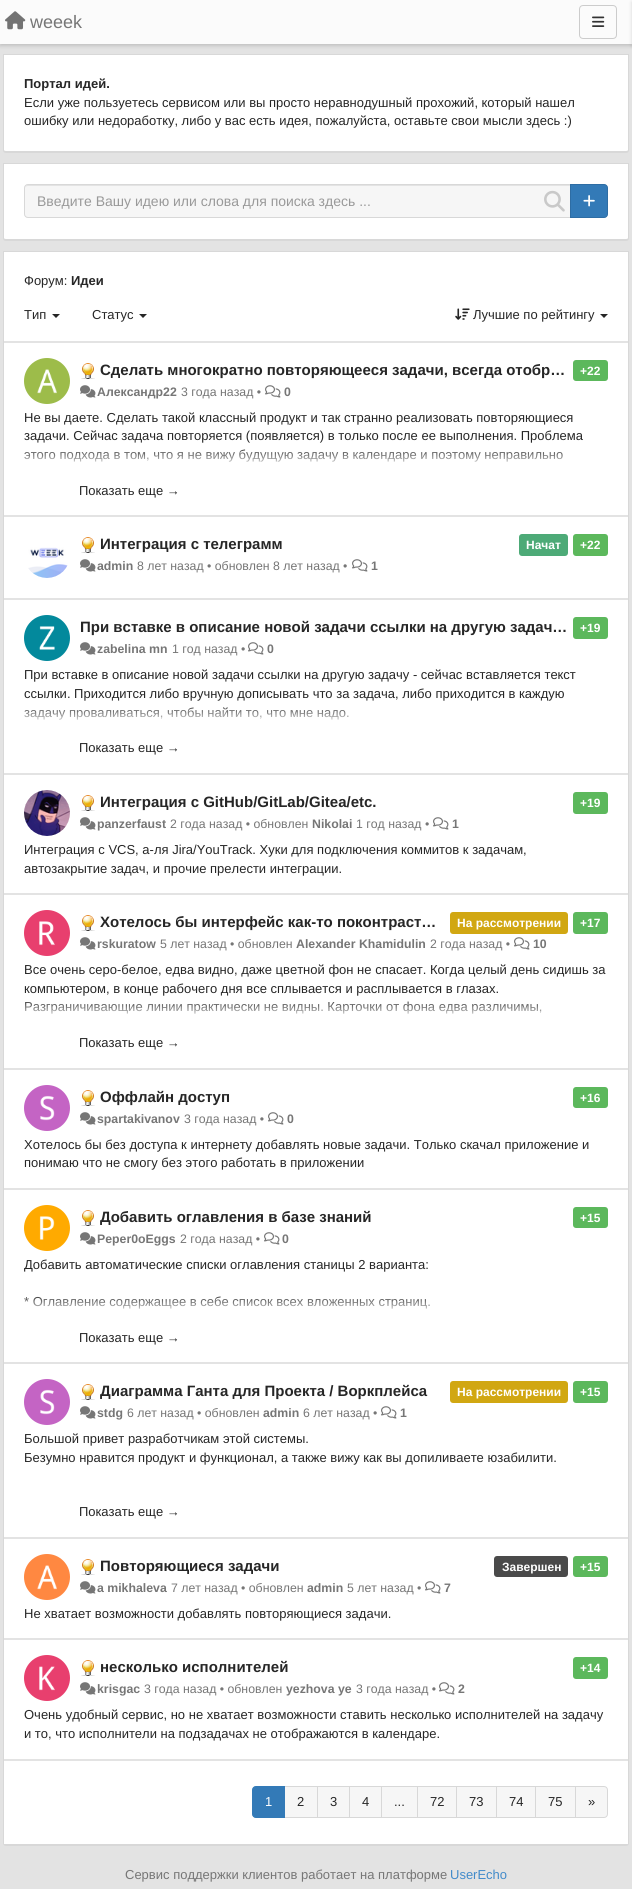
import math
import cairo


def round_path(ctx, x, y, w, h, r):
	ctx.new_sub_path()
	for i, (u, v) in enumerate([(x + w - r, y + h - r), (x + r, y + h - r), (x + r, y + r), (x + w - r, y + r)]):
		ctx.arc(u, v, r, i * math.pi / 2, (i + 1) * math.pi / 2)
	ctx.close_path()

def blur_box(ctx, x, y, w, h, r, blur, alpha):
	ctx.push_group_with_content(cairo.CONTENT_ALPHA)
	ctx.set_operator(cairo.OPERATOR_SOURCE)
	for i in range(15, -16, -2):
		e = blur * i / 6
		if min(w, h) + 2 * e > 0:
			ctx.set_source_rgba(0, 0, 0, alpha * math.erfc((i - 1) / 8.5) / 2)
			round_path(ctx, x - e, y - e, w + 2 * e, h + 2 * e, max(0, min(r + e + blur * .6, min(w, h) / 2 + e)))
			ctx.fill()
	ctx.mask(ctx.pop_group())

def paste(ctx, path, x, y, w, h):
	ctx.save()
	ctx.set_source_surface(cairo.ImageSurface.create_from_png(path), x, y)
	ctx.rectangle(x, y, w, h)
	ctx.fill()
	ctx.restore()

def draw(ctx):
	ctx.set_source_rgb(0.89, 0.89, 0.89)
	ctx.paint()
	ctx.set_source_rgb(0, 0, 0)
	blur_box(ctx, 0, 2, 632, 44, 0, 2, 0.15)
	ctx.set_source_rgb(0.984, 0.984, 0.984)
	ctx.rectangle(0, 0, 632, 44)
	ctx.fill()
	paste(ctx, 'media/1.png', 5, 11, 21, 19)
	ctx.select_font_face('Liberation Sans')
	ctx.set_font_size(18)
	ctx.set_source_rgb(0.463, 0.463, 0.463)
	ctx.move_to(30, 28)
	ctx.show_text('weeek')
	round_path(ctx, 579.5, 5.5, 37, 33, 3.5)
	ctx.set_source_rgb(0.8, 0.8, 0.8)
	ctx.set_line_width(1)
	ctx.stroke()
	paste(ctx, 'media/2.png', 592, 16, 13, 11)
	ctx.set_source_rgb(0, 0, 0)
	blur_box(ctx, 632, 2, 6, 44, 0, 2, 0.15)
	ctx.set_source_rgb(0.847, 0.847, 0.847)
	ctx.rectangle(3, 54, 626, 1)
	ctx.fill()
	ctx.set_source_rgb(1, 1, 1)
	ctx.new_path()
	ctx.move_to(4, 55)
	ctx.line_to(628, 55)
	ctx.line_to(628, 150)
	ctx.curve_to(628, 151, 627, 151, 626, 151)
	ctx.line_to(6, 151)
	ctx.curve_to(5, 151, 4, 151, 4, 150)
	ctx.close_path()
	ctx.fill()
	ctx.set_source_rgb(0.847, 0.847, 0.847)
	ctx.set_fill_rule(cairo.FILL_RULE_EVEN_ODD)
	ctx.new_path()
	ctx.move_to(3, 55)
	ctx.line_to(629, 55)
	ctx.line_to(629, 150)
	ctx.curve_to(629, 152, 628, 153, 626, 153)
	ctx.line_to(6, 153)
	ctx.curve_to(4, 153, 3, 152, 3, 150)
	ctx.close_path()
	ctx.move_to(4, 55)
	ctx.line_to(628, 55)
	ctx.line_to(628, 150)
	ctx.curve_to(628, 151, 627, 151, 626, 151)
	ctx.line_to(6, 151)
	ctx.curve_to(5, 151, 4, 151, 4, 150)
	ctx.close_path()
	ctx.fill()
	ctx.select_font_face('Liberation Sans', cairo.FONT_SLANT_NORMAL, cairo.FONT_WEIGHT_BOLD)
	ctx.set_font_size(13)
	ctx.set_source_rgb(0.149, 0.149, 0.149)
	ctx.move_to(24, 88)
	ctx.show_text('Портал идей.')
	ctx.select_font_face('Liberation Sans')
	ctx.move_to(24, 107)
	ctx.show_text('Если уже пользуетесь сервисом или вы просто неравнодушный прохожий, который нашел')
	ctx.move_to(24, 125)
	ctx.show_text('ошибку или недоработку, либо у вас есть идея, пожалуйста, оставьте свои мысли здесь :)')
	ctx.set_source_rgb(0.847, 0.847, 0.847)
	ctx.rectangle(3, 163, 626, 1)
	ctx.fill()
	ctx.set_source_rgb(1, 1, 1)
	ctx.set_fill_rule(cairo.FILL_RULE_WINDING)
	ctx.new_path()
	ctx.move_to(4, 164)
	ctx.line_to(628, 164)
	ctx.line_to(628, 238)
	ctx.curve_to(628, 239, 627, 239, 626, 239)
	ctx.line_to(6, 239)
	ctx.curve_to(5, 239, 4, 239, 4, 238)
	ctx.close_path()
	ctx.fill()
	ctx.set_source_rgb(0.847, 0.847, 0.847)
	ctx.set_fill_rule(cairo.FILL_RULE_EVEN_ODD)
	ctx.new_path()
	ctx.move_to(3, 164)
	ctx.line_to(629, 164)
	ctx.line_to(629, 238)
	ctx.curve_to(629, 240, 628, 241, 626, 241)
	ctx.line_to(6, 241)
	ctx.curve_to(4, 241, 3, 240, 3, 238)
	ctx.close_path()
	ctx.move_to(4, 164)
	ctx.line_to(628, 164)
	ctx.line_to(628, 238)
	ctx.curve_to(628, 239, 627, 239, 626, 239)
	ctx.line_to(6, 239)
	ctx.curve_to(5, 239, 4, 239, 4, 238)
	ctx.close_path()
	ctx.fill()
	ctx.set_source_rgb(0.961, 0.961, 0.961)
	ctx.new_path()
	ctx.move_to(28, 184)
	ctx.line_to(571, 184)
	ctx.line_to(571, 218)
	ctx.line_to(28, 218)
	ctx.curve_to(26, 218, 24, 216, 24, 214)
	ctx.line_to(24, 188)
	ctx.curve_to(24, 186, 26, 184, 28, 184)
	ctx.close_path()
	ctx.fill()
	ctx.set_source_rgb(0.89, 0.89, 0.89)
	ctx.set_fill_rule(cairo.FILL_RULE_WINDING)
	ctx.new_path()
	ctx.move_to(28, 186)
	ctx.line_to(570, 186)
	ctx.line_to(570, 185)
	ctx.line_to(28, 185)
	ctx.curve_to(26, 185, 25, 187, 25, 189)
	ctx.curve_to(25, 187, 26, 186, 28, 186)
	ctx.close_path()
	ctx.fill()
	ctx.new_path()
	ctx.move_to(28, 184.5)
	ctx.line_to(570.5, 184.5)
	ctx.line_to(570.5, 217.5)
	ctx.line_to(28, 217.5)
	ctx.curve_to(26, 217.5, 24.5, 216, 24.5, 214)
	ctx.line_to(24.5, 188)
	ctx.curve_to(24.5, 186, 26, 184.5, 28, 184.5)
	ctx.close_path()
	ctx.set_source_rgb(0.847, 0.847, 0.847)
	ctx.stroke()
	ctx.set_font_size(14)
	ctx.set_source_rgb(0.6, 0.6, 0.6)
	ctx.move_to(37, 206)
	ctx.show_text('Введите Вашу идею или слова для поиска здесь ...')
	paste(ctx, 'media/3.png', 544, 190, 21, 22)
	ctx.set_source_rgb(0.2, 0.478, 0.718)
	ctx.new_path()
	ctx.move_to(570.5, 184.5)
	ctx.line_to(604, 184.5)
	ctx.curve_to(606, 184.5, 607.5, 186, 607.5, 188)
	ctx.line_to(607.5, 214)
	ctx.curve_to(607.5, 216, 606, 217.5, 604, 217.5)
	ctx.line_to(570.5, 217.5)
	ctx.close_path()
	ctx.fill_preserve()
	ctx.set_source_rgb(0.18, 0.427, 0.643)
	ctx.stroke()
	paste(ctx, 'media/4.png', 583, 195, 12, 12)
	ctx.set_source_rgb(0.847, 0.847, 0.847)
	ctx.rectangle(3, 251, 626, 1)
	ctx.fill()
	ctx.set_fill_rule(cairo.FILL_RULE_EVEN_ODD)
	ctx.new_path()
	ctx.move_to(3, 252)
	ctx.line_to(629, 252)
	ctx.line_to(629, 1843)
	ctx.curve_to(629, 1845, 628, 1846, 626, 1846)
	ctx.line_to(6, 1846)
	ctx.curve_to(4, 1846, 3, 1845, 3, 1843)
	ctx.close_path()
	ctx.move_to(4, 252)
	ctx.line_to(628, 252)
	ctx.line_to(628, 1843)
	ctx.curve_to(628, 1844, 627, 1844, 626, 1844)
	ctx.line_to(6, 1844)
	ctx.curve_to(5, 1844, 4, 1844, 4, 1843)
	ctx.close_path()
	ctx.fill()
	ctx.set_source_rgb(1, 1, 1)
	ctx.rectangle(4, 252, 624, 89)
	ctx.fill()
	ctx.set_font_size(13)
	ctx.set_source_rgb(0.149, 0.149, 0.149)
	ctx.move_to(24, 285)
	ctx.show_text('Форум:')
	ctx.select_font_face('Liberation Sans', cairo.FONT_SLANT_NORMAL, cairo.FONT_WEIGHT_BOLD)
	ctx.move_to(71, 285)
	ctx.show_text('Идеи')
	ctx.select_font_face('Liberation Sans')
	ctx.move_to(24, 319)
	ctx.show_text('Тип')
	ctx.set_fill_rule(cairo.FILL_RULE_WINDING)
	ctx.new_path()
	ctx.move_to(52, 314)
	ctx.line_to(60, 314)
	ctx.line_to(56, 318)
	ctx.close_path()
	ctx.fill()
	ctx.move_to(92, 319)
	ctx.show_text('Статус')
	ctx.new_path()
	ctx.move_to(139, 314)
	ctx.line_to(147, 314)
	ctx.line_to(143, 318)
	ctx.close_path()
	ctx.fill()
	paste(ctx, 'media/5.png', 455, 308, 15, 12)
	ctx.move_to(473, 319)
	ctx.show_text('Лучшие по рейтингу')
	ctx.new_path()
	ctx.move_to(600, 314)
	ctx.line_to(608, 314)
	ctx.line_to(604, 318)
	ctx.close_path()
	ctx.fill()
	ctx.set_source_rgb(1, 1, 1)
	ctx.rectangle(4, 343, 624, 172)
	ctx.fill()
	ctx.set_source_rgb(0.616, 0.737, 0.29)
	ctx.arc(47, 381, 23, 0, 2 * math.pi)
	ctx.fill()
	paste(ctx, 'media/6.png', 37, 369, 20, 25)
	paste(ctx, 'media/7.png', 81, 363, 14, 16)
	ctx.select_font_face('Liberation Sans', cairo.FONT_SLANT_NORMAL, cairo.FONT_WEIGHT_BOLD)
	ctx.set_font_size(15)
	ctx.set_source_rgb(0.149, 0.149, 0.149)
	ctx.move_to(100, 375)
	ctx.show_text('Сделать многократно повторяющееся задачи, всегда отобр…')
	ctx.set_source_rgb(0.361, 0.722, 0.361)
	round_path(ctx, 573, 360, 35, 21, 3)
	ctx.fill()
	ctx.set_font_size(12)
	ctx.set_source_rgb(1, 1, 1)
	ctx.move_to(580, 375)
	ctx.show_text('+22')
	paste(ctx, 'media/8.png', 80, 385, 16, 13)
	ctx.set_font_size(12.3)
	ctx.set_source_rgb(0.463, 0.463, 0.463)
	ctx.move_to(97, 396)
	ctx.show_text('Александр22')
	ctx.select_font_face('Liberation Sans')
	ctx.move_to(181, 396)
	ctx.show_text('3 года назад •')
	paste(ctx, 'media/9.png', 265, 385, 16, 13)
	ctx.select_font_face('Liberation Sans', cairo.FONT_SLANT_NORMAL, cairo.FONT_WEIGHT_BOLD)
	ctx.move_to(284, 396)
	ctx.show_text('0')
	ctx.select_font_face('Liberation Sans')
	ctx.set_font_size(13)
	ctx.set_source_rgb(0.149, 0.149, 0.149)
	for x, y, s in [
		(24, 422, 'Не вы даете. Сделать такой классный продукт и так странно реализовать повторяющиеся'),
		(24, 440, 'задачи. Сейчас задача повторяется (появляется) в только после ее выполнения. Проблема'),
		(24, 459, 'этого подхода в том, что я не вижу будущую задачу в календаре и поэтому неправильно'),
	]:
		ctx.move_to(x, y)
		ctx.show_text(s)
	gradient = cairo.LinearGradient(316, 447, 316, 477)
	gradient.add_color_stop_rgba(0, 1, 1, 1, 0)
	gradient.add_color_stop_rgba(0.7, 1, 1, 1, 1)
	ctx.set_source(gradient)
	ctx.rectangle(24, 449, 539, 13)
	ctx.fill()
	ctx.set_source_rgb(0.149, 0.149, 0.149)
	ctx.move_to(79, 495)
	ctx.show_text('Показать еще →')
	ctx.set_source_rgb(1, 1, 1)
	ctx.rectangle(4, 517, 624, 81)
	ctx.fill()
	paste(ctx, 'media/7.png', 81, 537, 14, 16)
	ctx.select_font_face('Liberation Sans', cairo.FONT_SLANT_NORMAL, cairo.FONT_WEIGHT_BOLD)
	ctx.set_font_size(15)
	ctx.set_source_rgb(0.149, 0.149, 0.149)
	ctx.move_to(100, 549)
	ctx.show_text('Интеграция с телеграмм')
	ctx.set_source_rgb(0.302, 0.667, 0.467)
	round_path(ctx, 519, 534, 49, 22, 3)
	ctx.fill()
	ctx.set_font_size(12)
	ctx.set_source_rgb(1, 1, 1)
	ctx.move_to(526, 549)
	ctx.show_text('Начат')
	ctx.set_source_rgb(0.361, 0.722, 0.361)
	round_path(ctx, 573, 534, 35, 22, 3)
	ctx.fill()
	ctx.set_source_rgb(1, 1, 1)
	ctx.move_to(580, 549)
	ctx.show_text('+22')
	paste(ctx, 'media/10.png', 28, 547, 40, 31)
	paste(ctx, 'media/8.png', 80, 559, 16, 13)
	ctx.set_font_size(12.3)
	ctx.set_source_rgb(0.463, 0.463, 0.463)
	ctx.move_to(97, 570)
	ctx.show_text('admin')
	ctx.select_font_face('Liberation Sans')
	ctx.move_to(137, 570)
	ctx.show_text('8 лет назад • обновлен 8 лет назад •')
	paste(ctx, 'media/9.png', 352, 559, 16, 13)
	ctx.select_font_face('Liberation Sans', cairo.FONT_SLANT_NORMAL, cairo.FONT_WEIGHT_BOLD)
	ctx.move_to(371, 570)
	ctx.show_text('1')
	ctx.set_source_rgb(1, 1, 1)
	ctx.rectangle(4, 600, 624, 173)
	ctx.fill()
	ctx.set_source_rgb(0.012, 0.537, 0.612)
	ctx.arc(47, 638, 23, 0, 2 * math.pi)
	ctx.fill()
	paste(ctx, 'media/11.png', 39, 626, 16, 24)
	ctx.set_font_size(15)
	ctx.set_source_rgb(0.149, 0.149, 0.149)
	ctx.move_to(80, 632)
	ctx.show_text('При вставке в описание новой задачи ссылки на другую задач…')
	ctx.set_source_rgb(0.361, 0.722, 0.361)
	round_path(ctx, 573, 617, 35, 22, 3)
	ctx.fill()
	ctx.set_font_size(12)
	ctx.set_source_rgb(1, 1, 1)
	ctx.move_to(580, 632)
	ctx.show_text('+19')
	paste(ctx, 'media/8.png', 80, 642, 16, 13)
	ctx.set_font_size(12.3)
	ctx.set_source_rgb(0.463, 0.463, 0.463)
	ctx.move_to(97, 653)
	ctx.show_text('zabelina mn')
	ctx.select_font_face('Liberation Sans')
	ctx.move_to(172, 653)
	ctx.show_text('1 год назад •')
	paste(ctx, 'media/9.png', 248, 642, 16, 13)
	ctx.select_font_face('Liberation Sans', cairo.FONT_SLANT_NORMAL, cairo.FONT_WEIGHT_BOLD)
	ctx.move_to(267, 653)
	ctx.show_text('0')
	ctx.select_font_face('Liberation Sans')
	ctx.set_font_size(13)
	ctx.set_source_rgb(0.149, 0.149, 0.149)
	for x, y, s in [
		(24, 679, 'При вставке в описание новой задачи ссылки на другую задачу - сейчас вставляется текст'),
		(24, 698, 'ссылки. Приходится либо вручную дописывать что за задача, либо приходится в каждую'),
		(24, 717, 'задачу проваливаться, чтобы найти то, что мне надо.'),
	]:
		ctx.move_to(x, y)
		ctx.show_text(s)
	gradient = cairo.LinearGradient(316, 704, 316, 734)
	gradient.add_color_stop_rgba(0, 1, 1, 1, 0)
	gradient.add_color_stop_rgba(0.7, 1, 1, 1, 1)
	ctx.set_source(gradient)
	ctx.rectangle(24, 707, 325, 13)
	ctx.fill()
	ctx.set_source_rgb(0.149, 0.149, 0.149)
	ctx.move_to(79, 752)
	ctx.show_text('Показать еще →')
	ctx.set_source_rgb(1, 1, 1)
	ctx.rectangle(4, 775, 624, 118)
	ctx.fill()
	paste(ctx, 'media/12.png', 24, 790, 46, 46)
	paste(ctx, 'media/7.png', 81, 795, 14, 16)
	ctx.select_font_face('Liberation Sans', cairo.FONT_SLANT_NORMAL, cairo.FONT_WEIGHT_BOLD)
	ctx.set_font_size(15)
	ctx.set_source_rgb(0.149, 0.149, 0.149)
	ctx.move_to(100, 807)
	ctx.show_text('Интеграция с GitHub/GitLab/Gitea/etc.')
	ctx.set_source_rgb(0.361, 0.722, 0.361)
	round_path(ctx, 573, 792, 35, 22, 3)
	ctx.fill()
	ctx.set_font_size(12)
	ctx.set_source_rgb(1, 1, 1)
	ctx.move_to(580, 807)
	ctx.show_text('+19')
	paste(ctx, 'media/8.png', 80, 817, 16, 13)
	ctx.set_font_size(12.3)
	ctx.set_source_rgb(0.463, 0.463, 0.463)
	ctx.move_to(97, 828)
	ctx.show_text('panzerfaust')
	ctx.select_font_face('Liberation Sans')
	ctx.move_to(170, 828)
	ctx.show_text('2 года назад • обновлен')
	ctx.select_font_face('Liberation Sans', cairo.FONT_SLANT_NORMAL, cairo.FONT_WEIGHT_BOLD)
	ctx.move_to(312, 828)
	ctx.show_text('Nikolai')
	ctx.select_font_face('Liberation Sans')
	ctx.move_to(356, 828)
	ctx.show_text('1 год назад •')
	paste(ctx, 'media/9.png', 433, 817, 16, 13)
	ctx.select_font_face('Liberation Sans', cairo.FONT_SLANT_NORMAL, cairo.FONT_WEIGHT_BOLD)
	ctx.move_to(452, 828)
	ctx.show_text('1')
	ctx.select_font_face('Liberation Sans')
	ctx.set_font_size(13)
	ctx.set_source_rgb(0.149, 0.149, 0.149)
	ctx.move_to(24, 854)
	ctx.show_text('Интеграция с VCS, а-ля Jira/YouTrack. Хуки для подключения коммитов к задачам,')
	ctx.move_to(24, 873)
	ctx.show_text('автозакрытие задач, и прочие прелести интеграции.')
	ctx.set_source_rgb(1, 1, 1)
	ctx.rectangle(4, 895, 624, 173)
	ctx.fill()
	ctx.set_source_rgb(0.91, 0.247, 0.431)
	ctx.arc(47, 933, 23, 0, 2 * math.pi)
	ctx.fill()
	paste(ctx, 'media/13.png', 39, 921, 16, 25)
	paste(ctx, 'media/7.png', 81, 915, 14, 16)
	ctx.select_font_face('Liberation Sans', cairo.FONT_SLANT_NORMAL, cairo.FONT_WEIGHT_BOLD)
	ctx.set_font_size(15)
	ctx.set_source_rgb(0.149, 0.149, 0.149)
	ctx.move_to(100, 927)
	ctx.show_text('Хотелось бы интерфейс как-то поконтраст…')
	ctx.set_source_rgb(0.82, 0.655, 0.071)
	round_path(ctx, 450, 912, 118, 22, 3)
	ctx.fill()
	ctx.set_font_size(12)
	ctx.set_source_rgb(1, 1, 1)
	ctx.move_to(457, 927)
	ctx.show_text('На рассмотрении')
	ctx.set_source_rgb(0.361, 0.722, 0.361)
	round_path(ctx, 573, 912, 35, 22, 3)
	ctx.fill()
	ctx.set_source_rgb(1, 1, 1)
	ctx.move_to(580, 927)
	ctx.show_text('+17')
	paste(ctx, 'media/8.png', 80, 937, 16, 13)
	ctx.set_font_size(12.3)
	ctx.set_source_rgb(0.463, 0.463, 0.463)
	ctx.move_to(97, 948)
	ctx.show_text('rskuratow')
	ctx.select_font_face('Liberation Sans')
	ctx.move_to(160, 948)
	ctx.show_text('5 лет назад • обновлен')
	ctx.select_font_face('Liberation Sans', cairo.FONT_SLANT_NORMAL, cairo.FONT_WEIGHT_BOLD)
	ctx.move_to(296, 948)
	ctx.show_text('Alexander Khamidulin')
	ctx.select_font_face('Liberation Sans')
	ctx.move_to(430, 948)
	ctx.show_text('2 года назад •')
	paste(ctx, 'media/9.png', 514, 937, 16, 13)
	ctx.select_font_face('Liberation Sans', cairo.FONT_SLANT_NORMAL, cairo.FONT_WEIGHT_BOLD)
	ctx.move_to(533, 948)
	ctx.show_text('10')
	ctx.select_font_face('Liberation Sans')
	ctx.set_font_size(13)
	ctx.set_source_rgb(0.149, 0.149, 0.149)
	for x, y, s in [
		(24, 974, 'Все очень серо-белое, едва видно, даже цветной фон не спасает. Когда целый день сидишь за'),
		(24, 993, 'компьютером, в конце рабочего дня все сплывается и расплывается в глазах.'),
		(24, 1011, 'Разграничивающие линии практически не видны. Карточки от фона едва различимы,'),
	]:
		ctx.move_to(x, y)
		ctx.show_text(s)
	gradient = cairo.LinearGradient(316, 999, 316, 1029)
	gradient.add_color_stop_rgba(0, 1, 1, 1, 0)
	gradient.add_color_stop_rgba(0.7, 1, 1, 1, 1)
	ctx.set_source(gradient)
	ctx.rectangle(25, 1001, 517, 13)
	ctx.fill()
	ctx.set_source_rgb(0.149, 0.149, 0.149)
	ctx.move_to(79, 1047)
	ctx.show_text('Показать еще →')
	ctx.set_source_rgb(1, 1, 1)
	ctx.rectangle(4, 1070, 624, 118)
	ctx.fill()
	ctx.set_source_rgb(0.769, 0.392, 0.769)
	ctx.arc(47, 1108, 23, 0, 2 * math.pi)
	ctx.fill()
	paste(ctx, 'media/14.png', 40, 1095, 15, 26)
	paste(ctx, 'media/7.png', 81, 1090, 14, 16)
	ctx.select_font_face('Liberation Sans', cairo.FONT_SLANT_NORMAL, cairo.FONT_WEIGHT_BOLD)
	ctx.set_font_size(15)
	ctx.set_source_rgb(0.149, 0.149, 0.149)
	ctx.move_to(100, 1102)
	ctx.show_text('Оффлайн доступ')
	ctx.set_source_rgb(0.361, 0.722, 0.361)
	round_path(ctx, 573, 1087, 35, 21, 3)
	ctx.fill()
	ctx.set_font_size(12)
	ctx.set_source_rgb(1, 1, 1)
	ctx.move_to(580, 1102)
	ctx.show_text('+16')
	paste(ctx, 'media/8.png', 80, 1112, 16, 13)
	ctx.set_font_size(12.3)
	ctx.set_source_rgb(0.463, 0.463, 0.463)
	ctx.move_to(97, 1123)
	ctx.show_text('spartakivanov')
	ctx.select_font_face('Liberation Sans')
	ctx.move_to(184, 1123)
	ctx.show_text('3 года назад •')
	paste(ctx, 'media/9.png', 268, 1112, 16, 13)
	ctx.select_font_face('Liberation Sans', cairo.FONT_SLANT_NORMAL, cairo.FONT_WEIGHT_BOLD)
	ctx.move_to(287, 1123)
	ctx.show_text('0')
	ctx.select_font_face('Liberation Sans')
	ctx.set_font_size(13)
	ctx.set_source_rgb(0.149, 0.149, 0.149)
	ctx.move_to(24, 1149)
	ctx.show_text('Хотелось бы без доступа к интернету добавлять новые задачи. Только скачал приложение и')
	ctx.move_to(24, 1167)
	ctx.show_text('понимаю что не смогу без этого работать в приложении')
	ctx.set_source_rgb(1, 1, 1)
	ctx.rectangle(4, 1190, 624, 172)
	ctx.fill()
	ctx.set_source_rgb(1, 0.667, 0)
	ctx.arc(47, 1228, 23, 0, 2 * math.pi)
	ctx.fill()
	paste(ctx, 'media/15.png', 39, 1216, 16, 24)
	paste(ctx, 'media/7.png', 81, 1210, 14, 16)
	ctx.select_font_face('Liberation Sans', cairo.FONT_SLANT_NORMAL, cairo.FONT_WEIGHT_BOLD)
	ctx.set_font_size(15)
	ctx.set_source_rgb(0.149, 0.149, 0.149)
	ctx.move_to(100, 1222)
	ctx.show_text('Добавить оглавления в базе знаний')
	ctx.set_source_rgb(0.361, 0.722, 0.361)
	round_path(ctx, 573, 1207, 35, 21, 3)
	ctx.fill()
	ctx.set_font_size(12)
	ctx.set_source_rgb(1, 1, 1)
	ctx.move_to(580, 1222)
	ctx.show_text('+15')
	paste(ctx, 'media/8.png', 80, 1232, 16, 13)
	ctx.set_font_size(12.3)
	ctx.set_source_rgb(0.463, 0.463, 0.463)
	ctx.move_to(97, 1243)
	ctx.show_text('Peper0oEggs')
	ctx.select_font_face('Liberation Sans')
	ctx.move_to(180, 1243)
	ctx.show_text('2 года назад •')
	paste(ctx, 'media/9.png', 264, 1232, 16, 13)
	ctx.select_font_face('Liberation Sans', cairo.FONT_SLANT_NORMAL, cairo.FONT_WEIGHT_BOLD)
	ctx.move_to(282, 1243)
	ctx.show_text('0')
	ctx.select_font_face('Liberation Sans')
	ctx.set_font_size(13)
	ctx.set_source_rgb(0.149, 0.149, 0.149)
	ctx.move_to(24, 1269)
	ctx.show_text('Добавить автоматические списки оглавления станицы 2 варианта:')
	ctx.move_to(24, 1306)
	ctx.show_text('* Оглавление содержащее в себе список всех вложенных страниц.')
	gradient = cairo.LinearGradient(316, 1294, 316, 1324)
	gradient.add_color_stop_rgba(0, 1, 1, 1, 0)
	gradient.add_color_stop_rgba(0.7, 1, 1, 1, 1)
	ctx.set_source(gradient)
	ctx.rectangle(24, 1296, 406, 13)
	ctx.fill()
	ctx.set_source_rgb(0.149, 0.149, 0.149)
	ctx.move_to(79, 1342)
	ctx.show_text('Показать еще →')
	ctx.set_source_rgb(1, 1, 1)
	ctx.rectangle(4, 1364, 624, 173)
	ctx.fill()
	ctx.set_source_rgb(0.769, 0.392, 0.769)
	ctx.arc(47, 1402, 23, 0, 2 * math.pi)
	ctx.fill()
	paste(ctx, 'media/14.png', 40, 1389, 15, 26)
	paste(ctx, 'media/7.png', 81, 1384, 14, 16)
	ctx.select_font_face('Liberation Sans', cairo.FONT_SLANT_NORMAL, cairo.FONT_WEIGHT_BOLD)
	ctx.set_font_size(15)
	ctx.set_source_rgb(0.149, 0.149, 0.149)
	ctx.move_to(100, 1396)
	ctx.show_text('Диаграмма Ганта для Проекта / Воркплейса')
	ctx.set_source_rgb(0.82, 0.655, 0.071)
	round_path(ctx, 450, 1381, 118, 22, 3)
	ctx.fill()
	ctx.set_font_size(12)
	ctx.set_source_rgb(1, 1, 1)
	ctx.move_to(457, 1396)
	ctx.show_text('На рассмотрении')
	ctx.set_source_rgb(0.361, 0.722, 0.361)
	round_path(ctx, 573, 1381, 35, 22, 3)
	ctx.fill()
	ctx.set_source_rgb(1, 1, 1)
	ctx.move_to(580, 1396)
	ctx.show_text('+15')
	paste(ctx, 'media/8.png', 80, 1406, 16, 13)
	ctx.set_font_size(12.3)
	ctx.set_source_rgb(0.463, 0.463, 0.463)
	ctx.move_to(97, 1417)
	ctx.show_text('stdg')
	ctx.select_font_face('Liberation Sans')
	ctx.move_to(127, 1417)
	ctx.show_text('6 лет назад • обновлен')
	ctx.select_font_face('Liberation Sans', cairo.FONT_SLANT_NORMAL, cairo.FONT_WEIGHT_BOLD)
	ctx.move_to(263, 1417)
	ctx.show_text('admin')
	ctx.select_font_face('Liberation Sans')
	ctx.move_to(303, 1417)
	ctx.show_text('6 лет назад •')
	paste(ctx, 'media/9.png', 381, 1406, 16, 13)
	ctx.select_font_face('Liberation Sans', cairo.FONT_SLANT_NORMAL, cairo.FONT_WEIGHT_BOLD)
	ctx.move_to(400, 1417)
	ctx.show_text('1')
	ctx.select_font_face('Liberation Sans')
	ctx.set_font_size(13)
	ctx.set_source_rgb(0.149, 0.149, 0.149)
	for x, y, s in [
		(24, 1443, 'Большой привет разработчикам этой системы.'),
		(24, 1462, 'Безумно нравится продукт и функционал, а также вижу как вы допиливаете юзабилити.'),
		(79, 1516, 'Показать еще →'),
	]:
		ctx.move_to(x, y)
		ctx.show_text(s)
	ctx.set_source_rgb(1, 1, 1)
	ctx.rectangle(4, 1539, 624, 99)
	ctx.fill()
	ctx.set_source_rgb(1, 0.533, 0.255)
	ctx.arc(47, 1577, 23, 0, 2 * math.pi)
	ctx.fill()
	paste(ctx, 'media/16.png', 37, 1565, 20, 25)
	paste(ctx, 'media/7.png', 81, 1559, 14, 16)
	ctx.select_font_face('Liberation Sans', cairo.FONT_SLANT_NORMAL, cairo.FONT_WEIGHT_BOLD)
	ctx.set_font_size(15)
	ctx.set_source_rgb(0.149, 0.149, 0.149)
	ctx.move_to(100, 1571)
	ctx.show_text('Повторяющиеся задачи')
	ctx.set_source_rgb(0.29, 0.29, 0.29)
	round_path(ctx, 494, 1556, 74, 21, 3)
	ctx.fill()
	ctx.set_font_size(12)
	ctx.set_source_rgb(1, 1, 1)
	ctx.move_to(502, 1571)
	ctx.show_text('Завершен')
	ctx.set_source_rgb(0.361, 0.722, 0.361)
	round_path(ctx, 573, 1556, 35, 21, 3)
	ctx.fill()
	ctx.set_source_rgb(1, 1, 1)
	ctx.move_to(580, 1571)
	ctx.show_text('+15')
	paste(ctx, 'media/8.png', 80, 1581, 16, 13)
	ctx.set_font_size(12.3)
	ctx.set_source_rgb(0.463, 0.463, 0.463)
	ctx.move_to(97, 1592)
	ctx.show_text('a mikhaleva')
	ctx.select_font_face('Liberation Sans')
	ctx.move_to(171, 1592)
	ctx.show_text('7 лет назад • обновлен')
	ctx.select_font_face('Liberation Sans', cairo.FONT_SLANT_NORMAL, cairo.FONT_WEIGHT_BOLD)
	ctx.move_to(307, 1592)
	ctx.show_text('admin')
	ctx.select_font_face('Liberation Sans')
	ctx.move_to(347, 1592)
	ctx.show_text('5 лет назад •')
	paste(ctx, 'media/9.png', 425, 1581, 16, 13)
	ctx.select_font_face('Liberation Sans', cairo.FONT_SLANT_NORMAL, cairo.FONT_WEIGHT_BOLD)
	ctx.move_to(444, 1592)
	ctx.show_text('7')
	ctx.select_font_face('Liberation Sans')
	ctx.set_font_size(13)
	ctx.set_source_rgb(0.149, 0.149, 0.149)
	ctx.move_to(24, 1618)
	ctx.show_text('Не хватает возможности добавлять повторяющиеся задачи.')
	ctx.set_source_rgb(1, 1, 1)
	ctx.rectangle(4, 1640, 624, 119)
	ctx.fill()
	ctx.set_source_rgb(0.91, 0.247, 0.431)
	ctx.arc(47, 1678, 23, 0, 2 * math.pi)
	ctx.fill()
	paste(ctx, 'media/17.png', 39, 1666, 16, 25)
	paste(ctx, 'media/7.png', 81, 1660, 14, 16)
	ctx.select_font_face('Liberation Sans', cairo.FONT_SLANT_NORMAL, cairo.FONT_WEIGHT_BOLD)
	ctx.set_font_size(15)
	ctx.set_source_rgb(0.149, 0.149, 0.149)
	ctx.move_to(100, 1672)
	ctx.show_text('несколько исполнителей')
	ctx.set_source_rgb(0.361, 0.722, 0.361)
	round_path(ctx, 573, 1657, 35, 22, 3)
	ctx.fill()
	ctx.set_font_size(12)
	ctx.set_source_rgb(1, 1, 1)
	ctx.move_to(580, 1672)
	ctx.show_text('+14')
	paste(ctx, 'media/8.png', 80, 1682, 16, 13)
	ctx.set_font_size(12.3)
	ctx.set_source_rgb(0.463, 0.463, 0.463)
	ctx.move_to(97, 1693)
	ctx.show_text('krisgac')
	ctx.select_font_face('Liberation Sans')
	ctx.move_to(144, 1693)
	ctx.show_text('3 года назад • обновлен')
	ctx.select_font_face('Liberation Sans', cairo.FONT_SLANT_NORMAL, cairo.FONT_WEIGHT_BOLD)
	ctx.move_to(286, 1693)
	ctx.show_text('yezhova ye')
	ctx.select_font_face('Liberation Sans')
	ctx.move_to(356, 1693)
	ctx.show_text('3 года назад •')
	paste(ctx, 'media/9.png', 439, 1682, 16, 13)
	ctx.select_font_face('Liberation Sans', cairo.FONT_SLANT_NORMAL, cairo.FONT_WEIGHT_BOLD)
	ctx.move_to(458, 1693)
	ctx.show_text('2')
	ctx.select_font_face('Liberation Sans')
	ctx.set_font_size(13)
	ctx.set_source_rgb(0.149, 0.149, 0.149)
	ctx.move_to(24, 1719)
	ctx.show_text('Очень удобный сервис, но не хватает возможности ставить несколько исполнителей на задачу')
	ctx.move_to(24, 1738)
	ctx.show_text('и то, что исполнители на подзадачах не отображаются в календаре.')
	ctx.set_source_rgb(1, 1, 1)
	ctx.rectangle(4, 1761, 624, 83)
	ctx.fill()
	ctx.set_source_rgb(0.961, 0.961, 0.961)
	ctx.rectangle(284.5, 1786.5, 33, 31)
	ctx.fill_preserve()
	ctx.set_source_rgb(0.847, 0.847, 0.847)
	ctx.stroke()
	ctx.set_source_rgb(0.2, 0.478, 0.718)
	ctx.new_path()
	ctx.move_to(256, 1786.5)
	ctx.line_to(284.5, 1786.5)
	ctx.line_to(284.5, 1817.5)
	ctx.line_to(256, 1817.5)
	ctx.curve_to(254, 1817.5, 252.5, 1816, 252.5, 1814)
	ctx.line_to(252.5, 1790)
	ctx.curve_to(252.5, 1788, 254, 1786.5, 256, 1786.5)
	ctx.close_path()
	ctx.fill_preserve()
	ctx.stroke()
	ctx.set_source_rgb(1, 1, 1)
	ctx.move_to(265, 1806)
	ctx.show_text('1')
	ctx.set_source_rgb(0.149, 0.149, 0.149)
	ctx.move_to(297, 1806)
	ctx.show_text('2')
	ctx.set_source_rgb(0.961, 0.961, 0.961)
	ctx.rectangle(317.5, 1786.5, 32, 31)
	ctx.fill_preserve()
	ctx.set_source_rgb(0.847, 0.847, 0.847)
	ctx.stroke()
	ctx.set_source_rgb(0.149, 0.149, 0.149)
	ctx.move_to(330, 1806)
	ctx.show_text('3')
	ctx.set_source_rgb(0.961, 0.961, 0.961)
	ctx.rectangle(349.5, 1786.5, 32, 31)
	ctx.fill_preserve()
	ctx.set_source_rgb(0.847, 0.847, 0.847)
	ctx.stroke()
	ctx.set_source_rgb(0.149, 0.149, 0.149)
	ctx.move_to(362, 1806)
	ctx.show_text('4')
	ctx.set_source_rgb(0.961, 0.961, 0.961)
	ctx.rectangle(381.5, 1786.5, 36, 31)
	ctx.fill_preserve()
	ctx.set_source_rgb(0.847, 0.847, 0.847)
	ctx.stroke()
	ctx.set_source_rgb(0.149, 0.149, 0.149)
	ctx.move_to(394, 1806)
	ctx.show_text('...')
	ctx.set_source_rgb(0.961, 0.961, 0.961)
	ctx.rectangle(417.5, 1786.5, 39, 31)
	ctx.fill_preserve()
	ctx.set_source_rgb(0.847, 0.847, 0.847)
	ctx.stroke()
	ctx.set_source_rgb(0.149, 0.149, 0.149)
	ctx.move_to(430, 1806)
	ctx.show_text('72')
	ctx.set_source_rgb(0.961, 0.961, 0.961)
	ctx.rectangle(456.5, 1786.5, 40, 31)
	ctx.fill_preserve()
	ctx.set_source_rgb(0.847, 0.847, 0.847)
	ctx.stroke()
	ctx.set_source_rgb(0.149, 0.149, 0.149)
	ctx.move_to(469, 1806)
	ctx.show_text('73')
	ctx.set_source_rgb(0.961, 0.961, 0.961)
	ctx.rectangle(496.5, 1786.5, 39, 31)
	ctx.fill_preserve()
	ctx.set_source_rgb(0.847, 0.847, 0.847)
	ctx.stroke()
	ctx.set_source_rgb(0.149, 0.149, 0.149)
	ctx.move_to(509, 1806)
	ctx.show_text('74')
	ctx.set_source_rgb(0.961, 0.961, 0.961)
	ctx.rectangle(535.5, 1786.5, 40, 31)
	ctx.fill_preserve()
	ctx.set_source_rgb(0.847, 0.847, 0.847)
	ctx.stroke()
	ctx.set_source_rgb(0.149, 0.149, 0.149)
	ctx.move_to(548, 1806)
	ctx.show_text('75')
	ctx.set_source_rgb(0.961, 0.961, 0.961)
	ctx.new_path()
	ctx.move_to(575.5, 1786.5)
	ctx.line_to(604, 1786.5)
	ctx.curve_to(606, 1786.5, 607.5, 1788, 607.5, 1790)
	ctx.line_to(607.5, 1814)
	ctx.curve_to(607.5, 1816, 606, 1817.5, 604, 1817.5)
	ctx.line_to(575.5, 1817.5)
	ctx.close_path()
	ctx.fill_preserve()
	ctx.set_source_rgb(0.847, 0.847, 0.847)
	ctx.stroke()
	ctx.set_source_rgb(0.149, 0.149, 0.149)
	ctx.move_to(588, 1806)
	ctx.show_text('»')
	ctx.set_source_rgb(0.463, 0.463, 0.463)
	ctx.move_to(125, 1879)
	ctx.show_text('Сервис поддержки клиентов работает на платформе')
	ctx.set_source_rgb(0.259, 0.545, 0.792)
	ctx.move_to(450, 1879)
	ctx.show_text('UserEcho')


surface = cairo.ImageSurface(cairo.FORMAT_RGB24, 632, 1889)
ctx = cairo.Context(surface)
options = cairo.FontOptions()
options.set_hint_metrics(cairo.HINT_METRICS_OFF)
options.set_hint_style(cairo.HINT_STYLE_NONE)
ctx.set_font_options(options)
ctx.set_miter_limit(4)
draw(ctx)
surface.write_to_png('image.png')
